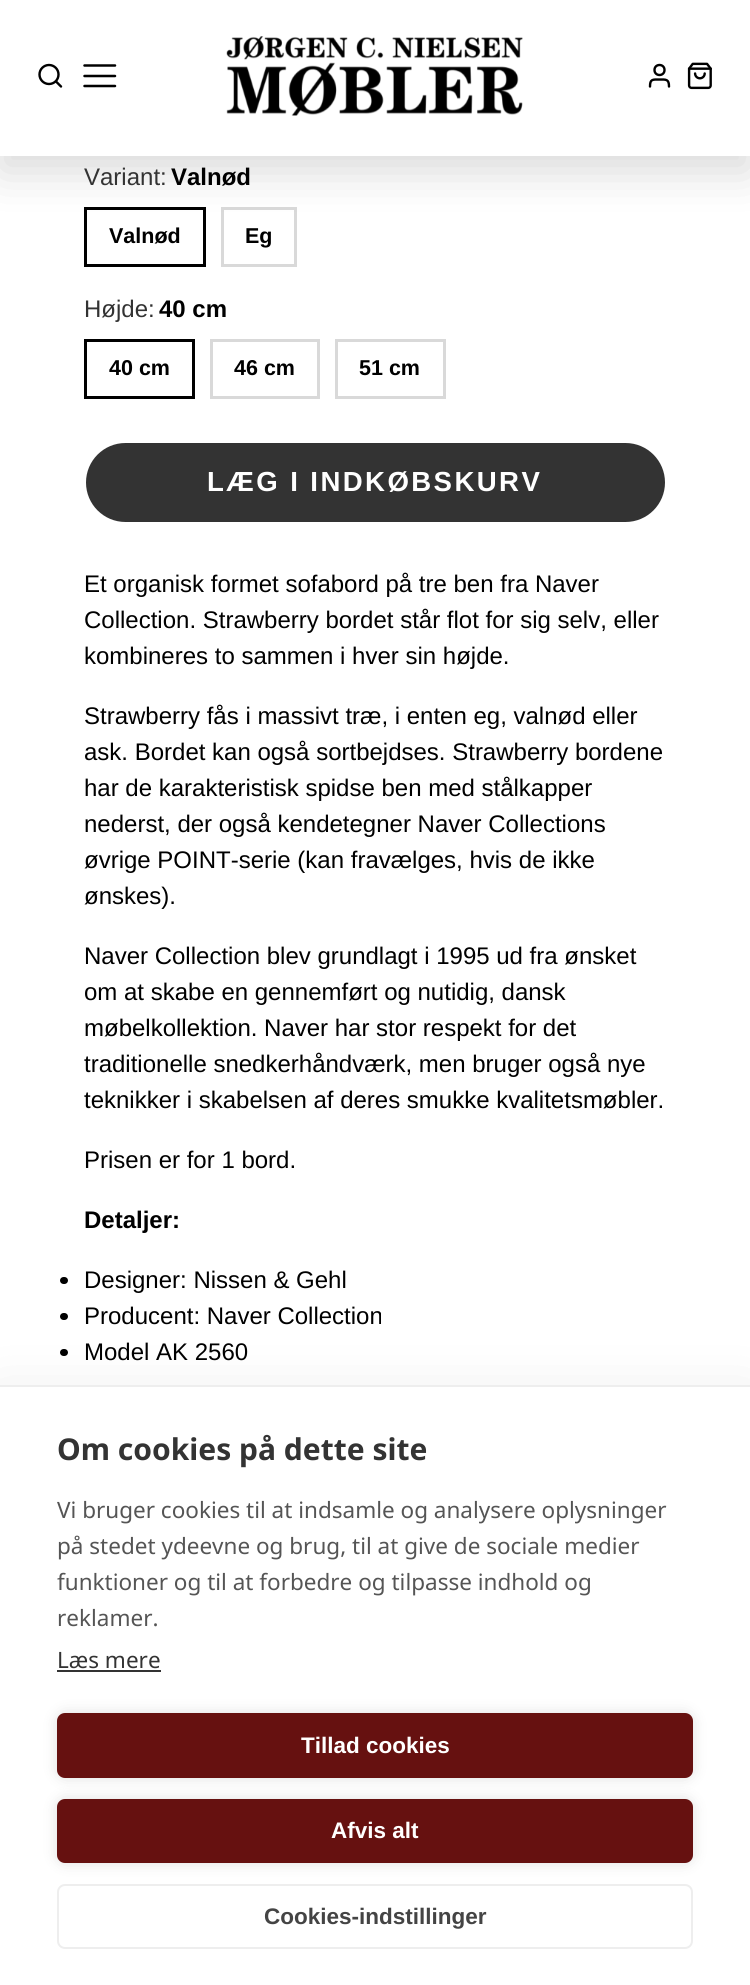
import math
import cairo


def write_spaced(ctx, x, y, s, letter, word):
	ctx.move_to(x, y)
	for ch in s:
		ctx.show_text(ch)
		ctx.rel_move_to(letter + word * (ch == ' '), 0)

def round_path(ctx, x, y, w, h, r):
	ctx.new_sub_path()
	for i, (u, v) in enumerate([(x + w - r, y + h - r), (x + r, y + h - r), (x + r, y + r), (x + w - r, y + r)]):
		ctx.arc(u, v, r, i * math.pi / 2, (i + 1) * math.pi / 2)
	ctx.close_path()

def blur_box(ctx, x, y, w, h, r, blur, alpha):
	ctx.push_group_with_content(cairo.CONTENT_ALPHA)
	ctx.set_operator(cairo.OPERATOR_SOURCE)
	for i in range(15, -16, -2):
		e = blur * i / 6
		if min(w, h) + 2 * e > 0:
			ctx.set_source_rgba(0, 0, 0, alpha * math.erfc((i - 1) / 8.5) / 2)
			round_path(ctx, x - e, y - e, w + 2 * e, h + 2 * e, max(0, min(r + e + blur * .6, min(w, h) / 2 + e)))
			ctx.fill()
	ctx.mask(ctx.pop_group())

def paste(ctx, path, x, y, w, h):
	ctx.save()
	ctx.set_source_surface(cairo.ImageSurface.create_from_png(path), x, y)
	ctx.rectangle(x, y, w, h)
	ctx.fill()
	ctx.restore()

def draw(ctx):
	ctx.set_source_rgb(1, 1, 1)
	ctx.paint()
	ctx.rectangle(85.5, 208.5, 119, 57)
	ctx.set_source_rgb(0, 0, 0)
	ctx.set_line_width(3)
	ctx.stroke()
	ctx.rectangle(222.5, 208.5, 73, 57)
	ctx.set_source_rgb(0.851, 0.851, 0.851)
	ctx.stroke()
	ctx.set_source_rgb(0, 0, 0)
	blur_box(ctx, 0, 15, 750, 156, 0, 22.5, 0.15)
	ctx.set_source_rgb(1, 1, 1)
	ctx.rectangle(0, 0, 750, 156)
	ctx.fill()
	ctx.arc(49, 74.5, 9.5, 0, 2 * math.pi)
	ctx.set_source_rgb(0, 0, 0)
	ctx.set_line_width(2.4)
	ctx.stroke()
	ctx.new_path()
	ctx.move_to(61, 86.5)
	ctx.line_to(56, 81.5)
	ctx.set_line_cap(cairo.LINE_CAP_ROUND)
	ctx.set_line_join(cairo.LINE_JOIN_ROUND)
	ctx.stroke()
	ctx.new_path()
	ctx.move_to(84.5, 76)
	ctx.line_to(115, 76)
	ctx.move_to(84.5, 65.5)
	ctx.line_to(115, 65.5)
	ctx.move_to(84.5, 86)
	ctx.line_to(115, 86)
	ctx.set_line_width(2.5)
	ctx.stroke()
	paste(ctx, 'media/1.png', 226, 36, 297, 80)
	ctx.arc(659.5, 70, 5, 0, 2 * math.pi)
	ctx.set_line_width(2.4)
	ctx.set_line_cap(cairo.LINE_CAP_BUTT)
	ctx.set_line_join(cairo.LINE_JOIN_MITER)
	ctx.stroke()
	ctx.new_path()
	ctx.move_to(669, 86.5)
	ctx.curve_to(669, 79, 666, 79.5, 659.5, 79.5)
	ctx.curve_to(652.5, 79.5, 650, 79, 650, 86.5)
	ctx.set_line_cap(cairo.LINE_CAP_ROUND)
	ctx.set_line_join(cairo.LINE_JOIN_ROUND)
	ctx.stroke()
	paste(ctx, 'media/2.png', 687, 62, 25, 28)
	ctx.select_font_face('Liberation Sans')
	ctx.set_font_size(24)
	ctx.set_source_rgb(0.2, 0.2, 0.2)
	ctx.move_to(84, 185)
	ctx.show_text('Variant:')
	ctx.select_font_face('Liberation Sans', cairo.FONT_SLANT_NORMAL, cairo.FONT_WEIGHT_BOLD)
	ctx.set_source_rgb(0, 0, 0)
	ctx.move_to(171, 185)
	ctx.show_text('Valnød')
	ctx.set_font_size(21.5)
	ctx.move_to(109, 243)
	ctx.show_text('Valnød')
	ctx.move_to(245, 243)
	ctx.show_text('Eg')
	ctx.select_font_face('Liberation Sans')
	ctx.set_font_size(24)
	ctx.set_source_rgb(0.2, 0.2, 0.2)
	ctx.move_to(84, 317)
	ctx.show_text('Højde:')
	ctx.select_font_face('Liberation Sans', cairo.FONT_SLANT_NORMAL, cairo.FONT_WEIGHT_BOLD)
	ctx.set_source_rgb(0, 0, 0)
	ctx.move_to(159, 317)
	ctx.show_text('40 cm')
	ctx.rectangle(85.5, 340.5, 108, 57)
	ctx.set_line_width(3)
	ctx.set_line_cap(cairo.LINE_CAP_BUTT)
	ctx.set_line_join(cairo.LINE_JOIN_MITER)
	ctx.stroke()
	ctx.set_font_size(21.5)
	ctx.move_to(109, 375)
	ctx.show_text('40 cm')
	ctx.rectangle(211.5, 340.5, 107, 57)
	ctx.set_source_rgb(0.851, 0.851, 0.851)
	ctx.stroke()
	ctx.set_source_rgb(0, 0, 0)
	ctx.move_to(234, 375)
	ctx.show_text('46 cm')
	ctx.rectangle(336.5, 340.5, 108, 57)
	ctx.set_source_rgb(0.851, 0.851, 0.851)
	ctx.stroke()
	ctx.set_source_rgb(0, 0, 0)
	ctx.move_to(359, 375)
	ctx.show_text('51 cm')
	ctx.set_source_rgb(0.2, 0.2, 0.2)
	round_path(ctx, 86, 443, 579, 79, 39.5)
	ctx.fill()
	ctx.set_font_size(27.6)
	ctx.set_source_rgb(1, 1, 1)
	write_spaced(ctx, 207, 491, 'LÆG I INDKØBSKURV', 2.4, 0)
	ctx.select_font_face('Liberation Sans')
	ctx.set_font_size(24)
	ctx.set_source_rgb(0, 0, 0)
	for x, y, s in [
		(84, 592, 'Et organisk formet sofabord på tre ben fra Naver'),
		(84, 628, 'Collection. Strawberry bordet står flot for sig selv, eller'),
		(84, 664, 'kombineres to sammen i hver sin højde.'),
		(84, 724, 'Strawberry fås i massivt træ, i enten eg, valnød eller'),
		(84, 760, 'ask. Bordet kan også sortbejdses. Strawberry bordene'),
		(84, 796, 'har de karakteristisk spidse ben med stålkapper'),
		(84, 832, 'nederst, der også kendetegner Naver Collections'),
		(84, 868, 'øvrige POINT-serie (kan fravælges, hvis de ikke'),
		(84, 904, 'ønskes).'),
		(84, 964, 'Naver Collection blev grundlagt i 1995 ud fra ønsket'),
		(84, 1000, 'om at skabe en gennemført og nutidig, dansk'),
		(84, 1036, 'møbelkollektion. Naver har stor respekt for det'),
		(84, 1072, 'traditionelle snedkerhåndværk, men bruger også nye'),
		(84, 1108, 'teknikker i skabelsen af deres smukke kvalitetsmøbler.'),
		(84, 1168, 'Prisen er for 1 bord.'),
	]:
		ctx.move_to(x, y)
		ctx.show_text(s)
	ctx.select_font_face('Liberation Sans', cairo.FONT_SLANT_NORMAL, cairo.FONT_WEIGHT_BOLD)
	ctx.move_to(84, 1228)
	ctx.show_text('Detaljer:')
	round_path(ctx, 60, 1277, 8, 7, 3.5)
	ctx.fill()
	ctx.select_font_face('Liberation Sans')
	ctx.move_to(84, 1288)
	ctx.show_text('Designer: Nissen & Gehl')
	round_path(ctx, 60, 1313, 8, 7, 3.5)
	ctx.fill()
	ctx.move_to(84, 1324)
	ctx.show_text('Producent: Naver Collection')
	round_path(ctx, 60, 1349, 8, 7, 3.5)
	ctx.fill()
	ctx.move_to(84, 1360)
	ctx.show_text('Model AK 2560')
	ctx.set_source_rgb(0, 0, 0)
	blur_box(ctx, 0, 1400, 750, 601, 0, 30, 0.1)
	ctx.set_source_rgb(1, 1, 1)
	ctx.rectangle(0, 1387, 750, 598)
	ctx.fill()
	ctx.set_source_rgb(0.933, 0.933, 0.933)
	ctx.rectangle(0, 1385, 750, 2)
	ctx.fill()
	ctx.select_font_face('Noto Sans', cairo.FONT_SLANT_NORMAL, cairo.FONT_WEIGHT_BOLD)
	ctx.set_font_size(30)
	ctx.set_source_rgb(0.2, 0.2, 0.2)
	ctx.move_to(57, 1460)
	ctx.show_text('Om cookies på dette site')
	ctx.select_font_face('Noto Sans')
	ctx.set_font_size(22.5)
	ctx.set_source_rgb(0.333, 0.333, 0.333)
	for x, y, s in [
		(57, 1518, 'Vi bruger cookies til at indsamle og analysere oplysninger'),
		(57, 1554, 'på stedet ydeevne og brug, til at give de sociale medier'),
		(57, 1590, 'funktioner og til at forbedre og tilpasse indhold og'),
		(57, 1626, 'reklamer.'),
	]:
		ctx.move_to(x, y)
		ctx.show_text(s)
	ctx.set_source_rgb(0.2, 0.2, 0.2)
	ctx.move_to(57, 1668)
	ctx.show_text('Læs mere')
	ctx.rectangle(57, 1670, 104, 2)
	ctx.fill()
	ctx.set_source_rgb(0, 0, 0)
	blur_box(ctx, 57, 1713, 636, 65, 8, 7.5, 0.12)
	ctx.set_source_rgb(0.4, 0.067, 0.063)
	round_path(ctx, 57, 1713, 636, 65, 8)
	ctx.fill()
	ctx.select_font_face('Liberation Sans', cairo.FONT_SLANT_NORMAL, cairo.FONT_WEIGHT_BOLD)
	ctx.set_source_rgb(1, 1, 1)
	ctx.move_to(301, 1753)
	ctx.show_text('Tillad cookies')
	ctx.set_source_rgb(0, 0, 0)
	blur_box(ctx, 57, 1799, 636, 64, 8, 7.5, 0.12)
	ctx.set_source_rgb(0.4, 0.067, 0.063)
	round_path(ctx, 57, 1799, 636, 64, 8)
	ctx.fill()
	ctx.set_source_rgb(1, 1, 1)
	ctx.move_to(331, 1838)
	ctx.show_text('Afvis alt')
	round_path(ctx, 58, 1885, 634, 63, 7)
	ctx.set_source_rgb(0.933, 0.933, 0.933)
	ctx.set_line_width(2)
	ctx.stroke()
	ctx.set_source_rgb(0.267, 0.267, 0.267)
	ctx.move_to(264, 1924)
	ctx.show_text('Cookies-indstillinger')


surface = cairo.ImageSurface(cairo.FORMAT_RGB24, 750, 1985)
ctx = cairo.Context(surface)
options = cairo.FontOptions()
options.set_hint_metrics(cairo.HINT_METRICS_OFF)
options.set_hint_style(cairo.HINT_STYLE_NONE)
ctx.set_font_options(options)
ctx.set_miter_limit(4)
draw(ctx)
surface.write_to_png('image.png')
